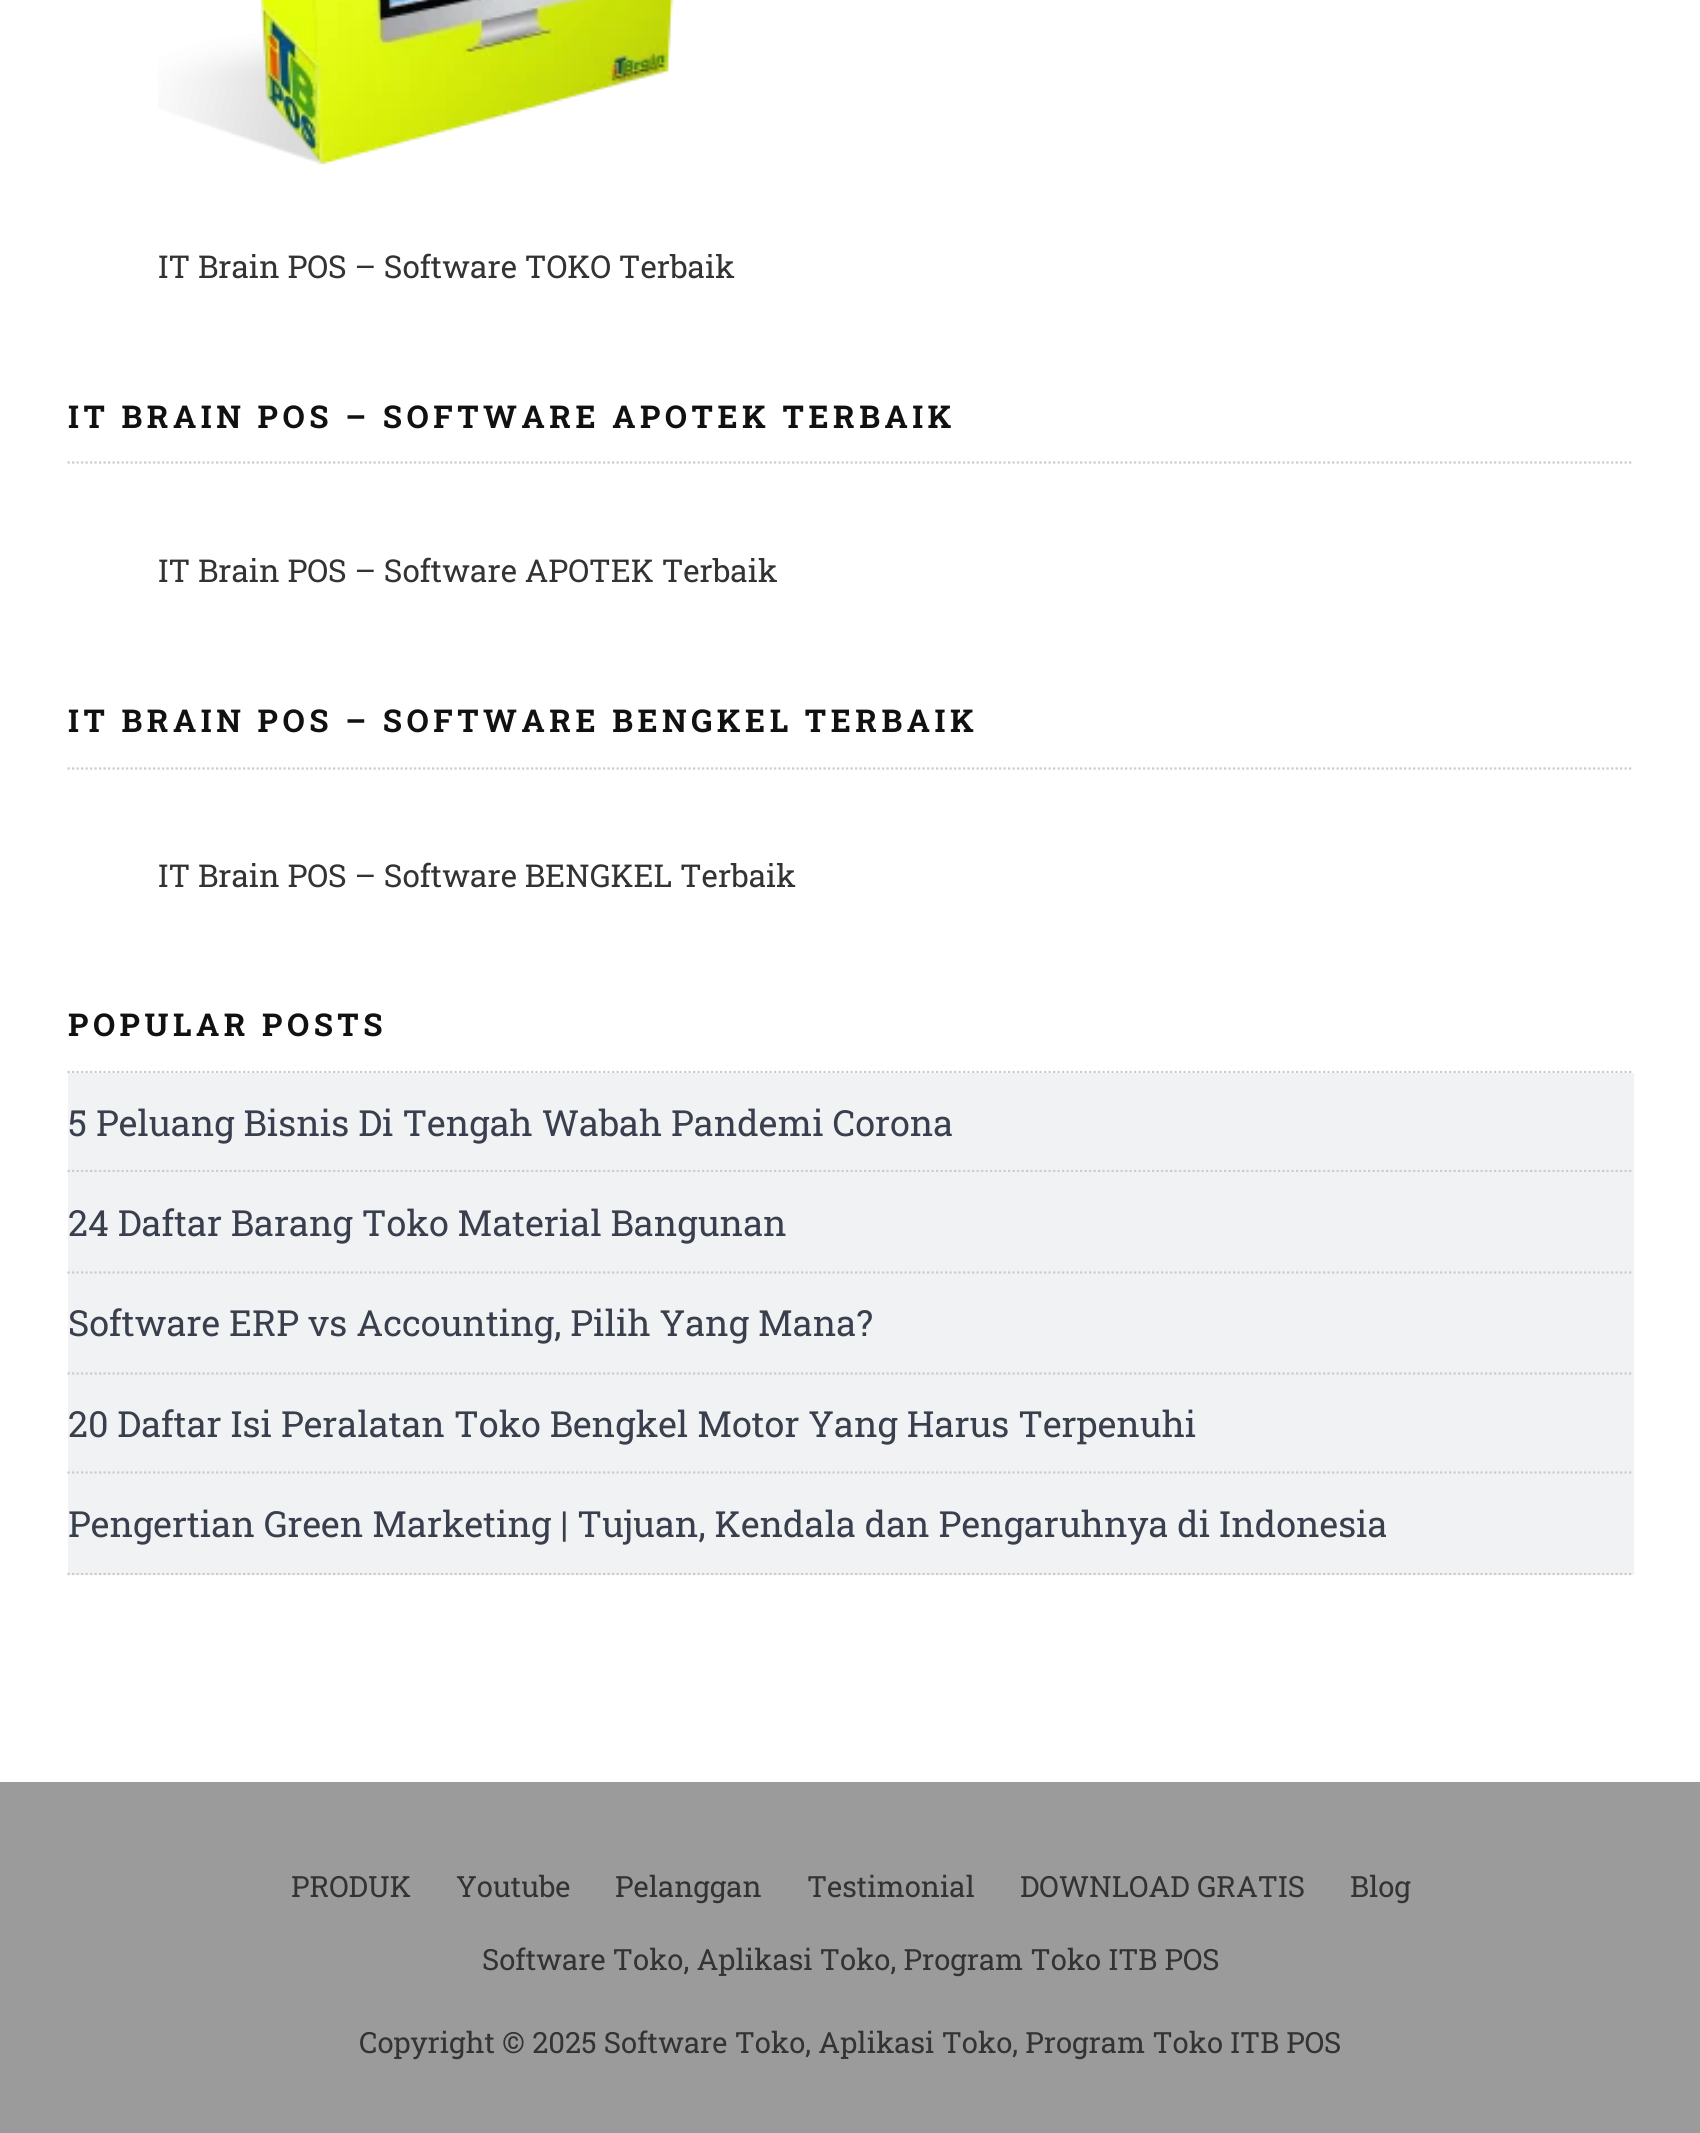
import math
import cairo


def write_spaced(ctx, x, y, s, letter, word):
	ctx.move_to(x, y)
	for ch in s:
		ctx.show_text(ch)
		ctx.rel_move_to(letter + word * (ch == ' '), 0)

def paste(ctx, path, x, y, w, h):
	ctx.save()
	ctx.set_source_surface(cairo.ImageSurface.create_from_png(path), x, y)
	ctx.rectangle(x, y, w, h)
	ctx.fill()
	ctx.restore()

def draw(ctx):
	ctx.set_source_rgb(0.608, 0.608, 0.608)
	ctx.paint()
	ctx.set_source_rgb(1, 1, 1)
	ctx.rectangle(0, 0, 1700, 1782)
	ctx.fill()
	paste(ctx, 'media/1.png', 158, 0, 516, 165)
	ctx.select_font_face('Roboto Slab')
	ctx.set_font_size(31.5)
	ctx.set_source_rgb(0.2, 0.2, 0.2)
	ctx.move_to(158, 278)
	ctx.show_text('IT Brain POS – Software TOKO Terbaik')
	ctx.new_path()
	ctx.move_to(67.5, 462.5)
	ctx.line_to(1633.5, 462.5)
	ctx.set_source_rgb(0.8, 0.8, 0.8)
	ctx.set_line_width(2.2)
	ctx.set_dash([2.25, 2.25])
	ctx.stroke()
	ctx.select_font_face('Roboto Slab', cairo.FONT_SLANT_NORMAL, cairo.FONT_WEIGHT_BOLD)
	ctx.set_source_rgb(0.067, 0.067, 0.067)
	write_spaced(ctx, 68, 428, 'IT BRAIN POS – SOFTWARE APOTEK TERBAIK', 4.5, 0)
	ctx.select_font_face('Roboto Slab')
	ctx.set_source_rgb(0.2, 0.2, 0.2)
	ctx.move_to(158, 582)
	ctx.show_text('IT Brain POS – Software APOTEK Terbaik')
	ctx.new_path()
	ctx.move_to(67.5, 768.5)
	ctx.line_to(1633.5, 768.5)
	ctx.set_source_rgb(0.8, 0.8, 0.8)
	ctx.stroke()
	ctx.select_font_face('Roboto Slab', cairo.FONT_SLANT_NORMAL, cairo.FONT_WEIGHT_BOLD)
	ctx.set_source_rgb(0.067, 0.067, 0.067)
	write_spaced(ctx, 68, 732, 'IT BRAIN POS – SOFTWARE BENGKEL TERBAIK', 4.5, 0)
	ctx.select_font_face('Roboto Slab')
	ctx.set_source_rgb(0.2, 0.2, 0.2)
	ctx.move_to(158, 887)
	ctx.show_text('IT Brain POS – Software BENGKEL Terbaik')
	ctx.new_path()
	ctx.move_to(67.5, 1072)
	ctx.line_to(1633.5, 1072)
	ctx.set_source_rgb(0.8, 0.8, 0.8)
	ctx.stroke()
	ctx.select_font_face('Roboto Slab', cairo.FONT_SLANT_NORMAL, cairo.FONT_WEIGHT_BOLD)
	ctx.set_source_rgb(0.067, 0.067, 0.067)
	write_spaced(ctx, 68, 1036, 'POPULAR POSTS', 4.5, 0)
	ctx.set_source_rgb(0.941, 0.949, 0.957)
	ctx.rectangle(68, 1073, 1566, 99)
	ctx.fill()
	ctx.new_path()
	ctx.move_to(67.5, 1171)
	ctx.line_to(1633.5, 1171)
	ctx.set_source_rgb(0.8, 0.8, 0.8)
	ctx.stroke()
	ctx.select_font_face('Roboto Slab')
	ctx.set_font_size(36)
	ctx.set_source_rgb(0.224, 0.247, 0.298)
	ctx.move_to(68, 1136)
	ctx.show_text('5 Peluang Bisnis Di Tengah Wabah Pandemi Corona')
	ctx.set_source_rgb(0.941, 0.949, 0.957)
	ctx.rectangle(68, 1172, 1566, 403)
	ctx.fill()
	ctx.new_path()
	ctx.move_to(67.5, 1272.5)
	ctx.line_to(1633.5, 1272.5)
	ctx.set_source_rgb(0.8, 0.8, 0.8)
	ctx.stroke()
	ctx.set_source_rgb(0.224, 0.247, 0.298)
	ctx.move_to(68, 1236)
	ctx.show_text('24 Daftar Barang Toko Material Bangunan')
	ctx.new_path()
	ctx.move_to(67.5, 1373.5)
	ctx.line_to(1633.5, 1373.5)
	ctx.set_source_rgb(0.8, 0.8, 0.8)
	ctx.stroke()
	ctx.set_source_rgb(0.224, 0.247, 0.298)
	ctx.move_to(68, 1336)
	ctx.show_text('Software ERP vs Accounting, Pilih Yang Mana?')
	ctx.new_path()
	ctx.move_to(67.5, 1472.5)
	ctx.line_to(1633.5, 1472.5)
	ctx.set_source_rgb(0.8, 0.8, 0.8)
	ctx.stroke()
	ctx.set_source_rgb(0.224, 0.247, 0.298)
	ctx.move_to(68, 1437)
	ctx.show_text('20 Daftar Isi Peralatan Toko Bengkel Motor Yang Harus Terpenuhi')
	ctx.new_path()
	ctx.move_to(67.5, 1574)
	ctx.line_to(1633.5, 1574)
	ctx.set_source_rgb(0.8, 0.8, 0.8)
	ctx.stroke()
	ctx.set_source_rgb(0.224, 0.247, 0.298)
	ctx.move_to(68, 1537)
	ctx.show_text('Pengertian Green Marketing | Tujuan, Kendala dan Pengaruhnya di Indonesia')
	ctx.set_font_size(29.25)
	ctx.set_source_rgb(0.2, 0.2, 0.2)
	for x, y, s in [
		(291, 1897, 'PRODUK'),
		(456, 1897, 'Youtube'),
		(615, 1897, 'Pelanggan'),
		(807, 1897, 'Testimonial'),
		(1020, 1897, 'DOWNLOAD GRATIS'),
		(1350, 1897, 'Blog'),
		(482, 1970, 'Software Toko, Aplikasi Toko, Program Toko ITB POS'),
		(359, 2053, 'Copyright © 2025 Software Toko, Aplikasi Toko, Program Toko ITB POS'),
	]:
		ctx.move_to(x, y)
		ctx.show_text(s)


surface = cairo.ImageSurface(cairo.FORMAT_RGB24, 1700, 2133)
ctx = cairo.Context(surface)
options = cairo.FontOptions()
options.set_hint_metrics(cairo.HINT_METRICS_OFF)
options.set_hint_style(cairo.HINT_STYLE_NONE)
ctx.set_font_options(options)
ctx.set_miter_limit(4)
draw(ctx)
surface.write_to_png('image.png')
